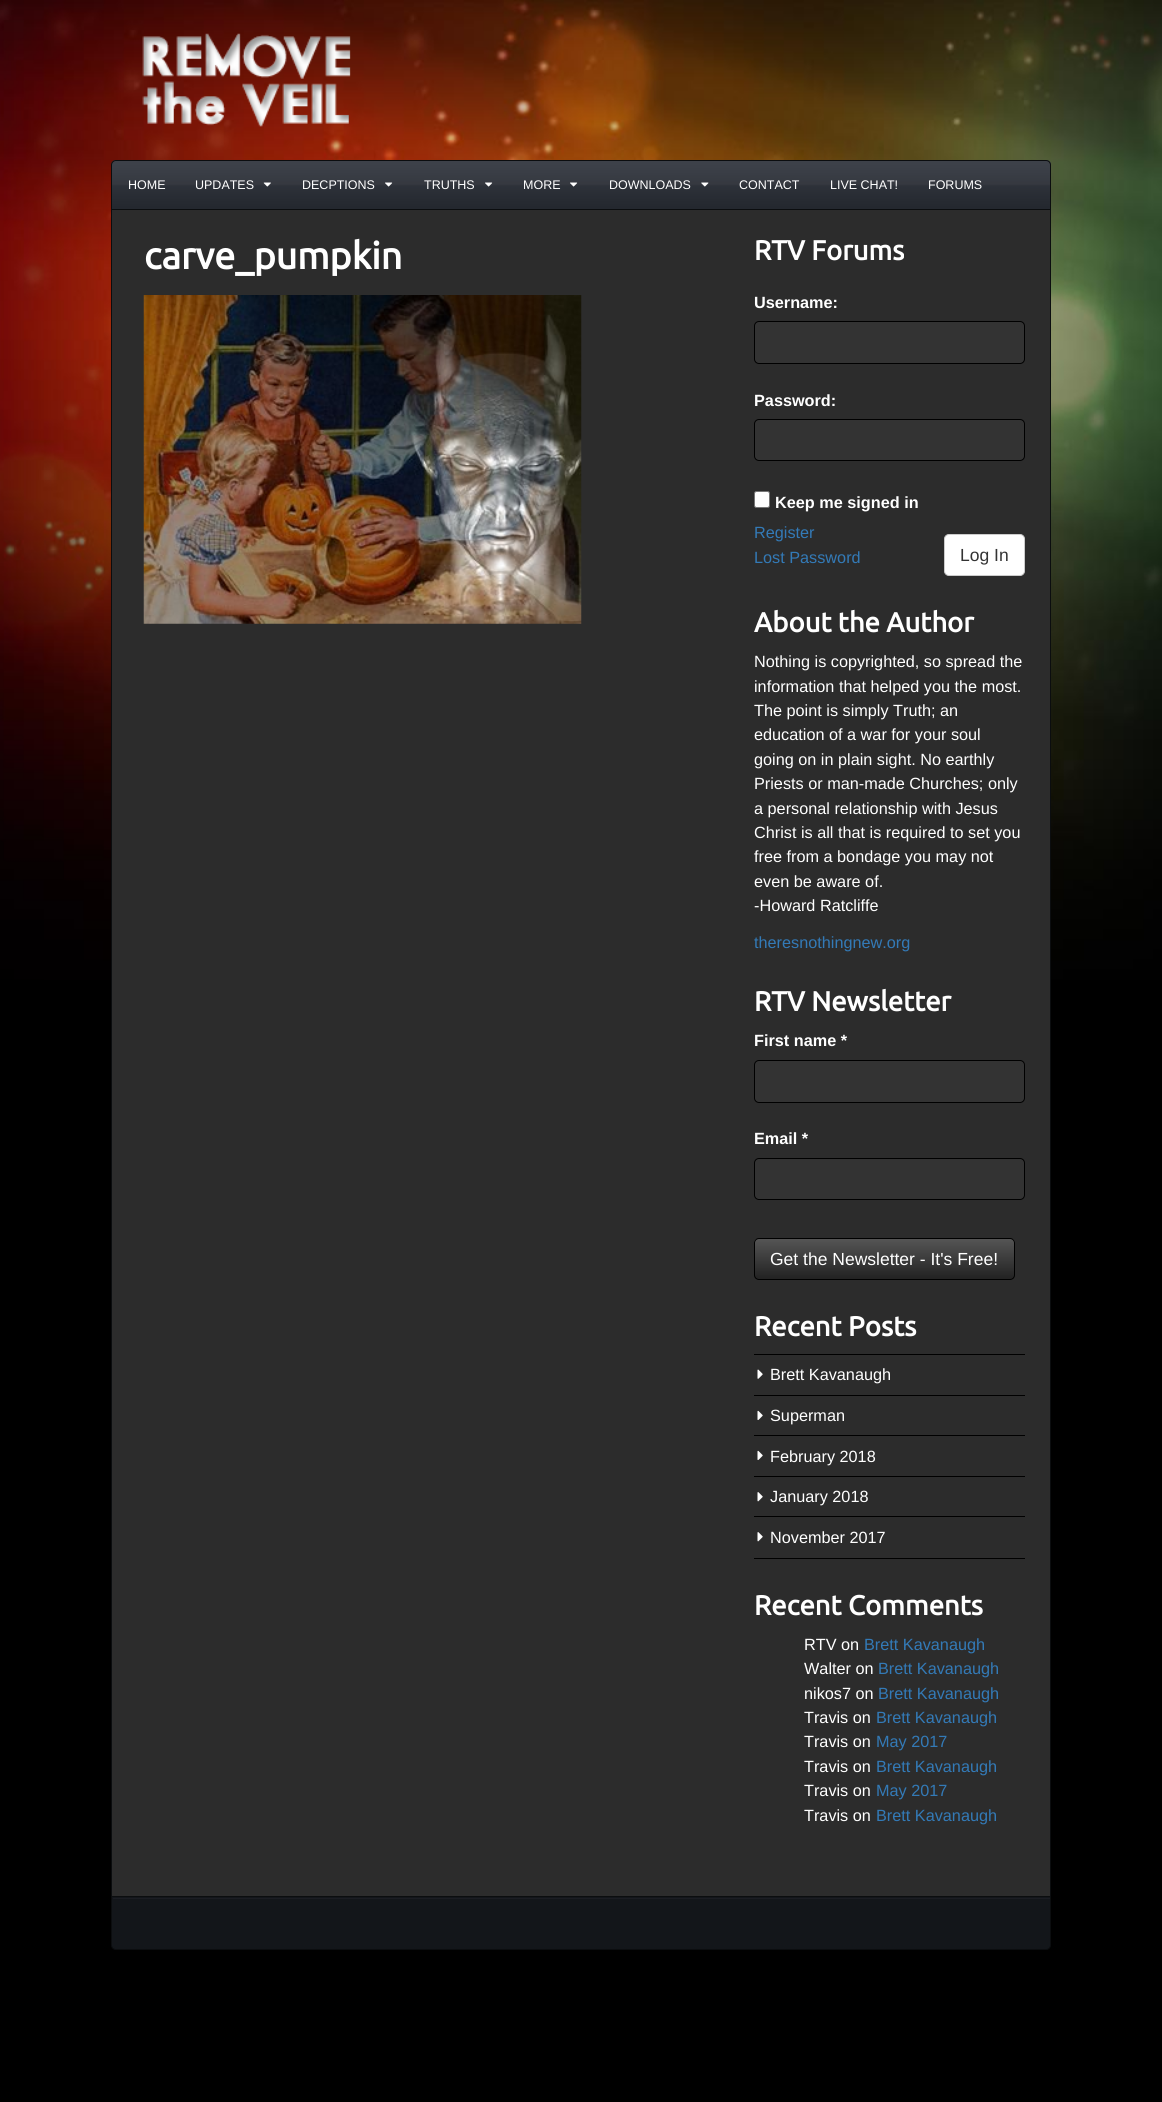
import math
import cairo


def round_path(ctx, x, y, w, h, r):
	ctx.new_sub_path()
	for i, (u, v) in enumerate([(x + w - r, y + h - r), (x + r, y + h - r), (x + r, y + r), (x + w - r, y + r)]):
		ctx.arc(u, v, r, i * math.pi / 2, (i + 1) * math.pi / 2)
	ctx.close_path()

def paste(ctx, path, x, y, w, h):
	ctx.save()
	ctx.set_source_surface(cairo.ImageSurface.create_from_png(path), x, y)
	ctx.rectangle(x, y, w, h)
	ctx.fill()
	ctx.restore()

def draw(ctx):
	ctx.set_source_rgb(0, 0, 0)
	ctx.paint()
	paste(ctx, 'media/1.png', 0, 0, 1162, 980)
	paste(ctx, 'media/2.png', 142, 33, 209, 94)
	paste(ctx, 'media/3.png', 111, 160, 940, 49)
	ctx.new_path()
	ctx.move_to(116, 160.5)
	ctx.line_to(1046, 160.5)
	ctx.curve_to(1048.5, 160.5, 1050.5, 162.5, 1050.5, 165)
	ctx.line_to(1050.5, 209.5)
	ctx.line_to(111.5, 209.5)
	ctx.line_to(111.5, 165)
	ctx.curve_to(111.5, 162.5, 113.5, 160.5, 116, 160.5)
	ctx.close_path()
	ctx.set_source_rgb(0.043, 0.051, 0.059)
	ctx.set_line_width(1)
	ctx.stroke()
	ctx.select_font_face('Liberation Sans')
	ctx.set_font_size(12.5)
	ctx.set_source_rgb(1, 1, 1)
	ctx.move_to(128, 189)
	ctx.show_text('HOME')
	ctx.move_to(195, 189)
	ctx.show_text('UPDATES')
	paste(ctx, 'media/4.png', 263, 182, 8, 5)
	ctx.move_to(302, 189)
	ctx.show_text('DECPTIONS')
	paste(ctx, 'media/5.png', 385, 182, 8, 5)
	ctx.move_to(424, 189)
	ctx.show_text('TRUTHS')
	paste(ctx, 'media/5.png', 485, 182, 8, 5)
	ctx.move_to(523, 189)
	ctx.show_text('MORE')
	paste(ctx, 'media/5.png', 570, 182, 8, 5)
	ctx.move_to(609, 189)
	ctx.show_text('DOWNLOADS')
	paste(ctx, 'media/6.png', 701, 182, 8, 5)
	for x, y, s in [
		(739, 189, 'CONTACT'),
		(830, 189, 'LIVE CHAT!'),
		(928, 189, 'FORUMS'),
	]:
		ctx.move_to(x, y)
		ctx.show_text(s)
	ctx.set_source_rgb(0.173, 0.173, 0.173)
	ctx.rectangle(112, 210, 938, 1686)
	ctx.fill()
	ctx.set_source_rgb(0.043, 0.051, 0.059)
	ctx.rectangle(1050, 210, 1, 1686)
	ctx.rectangle(111, 210, 1, 1686)
	ctx.fill()
	ctx.select_font_face('Ubuntu', cairo.FONT_SLANT_NORMAL, cairo.FONT_WEIGHT_BOLD)
	ctx.set_font_size(37.5)
	ctx.set_source_rgb(1, 1, 1)
	ctx.move_to(144, 269)
	ctx.show_text('carve_pumpkin')
	paste(ctx, 'media/7.png', 143, 295, 439, 329)
	ctx.set_font_size(27.5)
	ctx.move_to(754, 260)
	ctx.show_text('RTV Forums')
	ctx.select_font_face('Liberation Sans', cairo.FONT_SLANT_NORMAL, cairo.FONT_WEIGHT_BOLD)
	ctx.set_font_size(16.25)
	ctx.move_to(754, 308)
	ctx.show_text('Username:')
	ctx.set_source_rgb(0.2, 0.2, 0.2)
	round_path(ctx, 754.5, 321.5, 270, 42, 4.5)
	ctx.fill_preserve()
	ctx.set_source_rgb(0, 0, 0)
	ctx.stroke()
	ctx.set_source_rgb(1, 1, 1)
	ctx.move_to(754, 406)
	ctx.show_text('Password:')
	ctx.set_source_rgb(0.2, 0.2, 0.2)
	round_path(ctx, 754.5, 419.5, 270, 41, 4.5)
	ctx.fill_preserve()
	ctx.set_source_rgb(0, 0, 0)
	ctx.stroke()
	ctx.set_source_rgb(1, 1, 1)
	round_path(ctx, 754.5, 491.5, 15, 16, 2)
	ctx.fill_preserve()
	ctx.set_source_rgb(0.463, 0.463, 0.463)
	ctx.stroke()
	ctx.set_source_rgb(1, 1, 1)
	ctx.move_to(775, 508)
	ctx.show_text('Keep me signed in')
	ctx.select_font_face('Liberation Sans')
	ctx.set_source_rgb(0.2, 0.478, 0.718)
	ctx.move_to(754, 538)
	ctx.show_text('Register')
	ctx.move_to(754, 563)
	ctx.show_text('Lost Password')
	ctx.set_source_rgb(1, 1, 1)
	round_path(ctx, 944.5, 534.5, 80, 41, 4.5)
	ctx.fill_preserve()
	ctx.set_source_rgb(0.8, 0.8, 0.8)
	ctx.stroke()
	ctx.set_font_size(17.5)
	ctx.set_source_rgb(0.2, 0.2, 0.2)
	ctx.move_to(960, 561)
	ctx.show_text('Log In')
	ctx.select_font_face('Ubuntu', cairo.FONT_SLANT_NORMAL, cairo.FONT_WEIGHT_BOLD)
	ctx.set_font_size(27.5)
	ctx.set_source_rgb(1, 1, 1)
	ctx.move_to(754, 632)
	ctx.show_text('About the Author')
	ctx.select_font_face('Liberation Sans')
	ctx.set_font_size(16.25)
	for x, y, s in [
		(754, 667, 'Nothing is copyrighted, so spread the'),
		(754, 692, 'information that helped you the most.'),
		(754, 716, 'The point is simply Truth; an'),
		(754, 740, 'education of a war for your soul'),
		(754, 765, 'going on in plain sight. No earthly'),
		(754, 789, 'Priests or man-made Churches; only'),
		(754, 814, 'a personal relationship with Jesus'),
		(754, 838, 'Christ is all that is required to set you'),
		(754, 862, 'free from a bondage you may not'),
		(754, 887, 'even be aware of.'),
		(754, 911, '-Howard Ratcliffe'),
	]:
		ctx.move_to(x, y)
		ctx.show_text(s)
	ctx.set_source_rgb(0.2, 0.478, 0.718)
	ctx.move_to(754, 948)
	ctx.show_text('theresnothingnew.org')
	ctx.select_font_face('Ubuntu', cairo.FONT_SLANT_NORMAL, cairo.FONT_WEIGHT_BOLD)
	ctx.set_font_size(27.5)
	ctx.set_source_rgb(1, 1, 1)
	ctx.move_to(754, 1011)
	ctx.show_text('RTV Newsletter')
	ctx.select_font_face('Liberation Sans', cairo.FONT_SLANT_NORMAL, cairo.FONT_WEIGHT_BOLD)
	ctx.set_font_size(16.25)
	ctx.move_to(754, 1046)
	ctx.show_text('First name *')
	ctx.set_source_rgb(0.2, 0.2, 0.2)
	round_path(ctx, 754.5, 1060.5, 270, 42, 4.5)
	ctx.fill_preserve()
	ctx.set_source_rgb(0, 0, 0)
	ctx.stroke()
	ctx.set_source_rgb(1, 1, 1)
	ctx.move_to(754, 1144)
	ctx.show_text('Email *')
	ctx.set_source_rgb(0.2, 0.2, 0.2)
	round_path(ctx, 754.5, 1158.5, 270, 41, 4.5)
	ctx.fill_preserve()
	ctx.set_source_rgb(0, 0, 0)
	ctx.stroke()
	ctx.save()
	round_path(ctx, 754, 1238, 261, 42, 5)
	ctx.clip()
	gradient = cairo.LinearGradient(884, 1239, 884, 1279)
	gradient.add_color_stop_rgba(0, 0.333, 0.333, 0.333, 1)
	gradient.add_color_stop_rgba(1, 0.133, 0.133, 0.133, 1)
	ctx.set_source(gradient)
	ctx.rectangle(754, 1239, 261, 40)
	ctx.fill()
	ctx.restore()
	round_path(ctx, 754.5, 1238.5, 260, 41, 4.5)
	ctx.stroke()
	ctx.select_font_face('Liberation Sans')
	ctx.set_font_size(17.5)
	ctx.set_source_rgb(1, 1, 1)
	ctx.move_to(770, 1265)
	ctx.show_text('Get the Newsletter - It\'s Free!')
	ctx.select_font_face('Ubuntu', cairo.FONT_SLANT_NORMAL, cairo.FONT_WEIGHT_BOLD)
	ctx.set_font_size(27.5)
	ctx.move_to(754, 1336)
	ctx.show_text('Recent Posts')
	ctx.set_source_rgb(0, 0, 0)
	ctx.rectangle(754, 1354, 271, 1)
	ctx.fill()
	ctx.rectangle(754, 1395, 271, 1)
	ctx.fill()
	paste(ctx, 'media/8.png', 757, 1369, 6, 10)
	ctx.select_font_face('Liberation Sans')
	ctx.set_font_size(16.25)
	ctx.set_source_rgb(1, 1, 1)
	ctx.move_to(770, 1380)
	ctx.show_text('Brett Kavanaugh')
	ctx.set_source_rgb(0, 0, 0)
	ctx.rectangle(754, 1435, 271, 1)
	ctx.fill()
	paste(ctx, 'media/9.png', 757, 1410, 6, 10)
	ctx.set_source_rgb(1, 1, 1)
	ctx.move_to(770, 1421)
	ctx.show_text('Superman')
	ctx.set_source_rgb(0, 0, 0)
	ctx.rectangle(754, 1476, 271, 1)
	ctx.fill()
	paste(ctx, 'media/9.png', 757, 1450, 6, 10)
	ctx.set_source_rgb(1, 1, 1)
	ctx.move_to(770, 1462)
	ctx.show_text('February 2018')
	ctx.set_source_rgb(0, 0, 0)
	ctx.rectangle(754, 1516, 271, 1)
	ctx.fill()
	paste(ctx, 'media/10.png', 757, 1492, 6, 10)
	ctx.set_source_rgb(1, 1, 1)
	ctx.move_to(770, 1502)
	ctx.show_text('January 2018')
	ctx.set_source_rgb(0, 0, 0)
	ctx.rectangle(754, 1558, 271, 1)
	ctx.fill()
	paste(ctx, 'media/10.png', 757, 1532, 6, 10)
	ctx.set_source_rgb(1, 1, 1)
	ctx.move_to(770, 1543)
	ctx.show_text('November 2017')
	ctx.select_font_face('Ubuntu', cairo.FONT_SLANT_NORMAL, cairo.FONT_WEIGHT_BOLD)
	ctx.set_font_size(27.5)
	ctx.move_to(754, 1615)
	ctx.show_text('Recent Comments')
	ctx.select_font_face('Liberation Sans')
	ctx.set_font_size(16.25)
	ctx.move_to(804, 1650)
	ctx.show_text('RTV on')
	ctx.set_source_rgb(0.2, 0.478, 0.718)
	ctx.move_to(864, 1650)
	ctx.show_text('Brett Kavanaugh')
	ctx.set_source_rgb(1, 1, 1)
	ctx.move_to(804, 1674)
	ctx.show_text('Walter on')
	ctx.set_source_rgb(0.2, 0.478, 0.718)
	ctx.move_to(878, 1674)
	ctx.show_text('Brett Kavanaugh')
	ctx.set_source_rgb(1, 1, 1)
	ctx.move_to(804, 1699)
	ctx.show_text('nikos7 on')
	ctx.set_source_rgb(0.2, 0.478, 0.718)
	ctx.move_to(878, 1699)
	ctx.show_text('Brett Kavanaugh')
	ctx.set_source_rgb(1, 1, 1)
	ctx.move_to(804, 1723)
	ctx.show_text('Travis on')
	ctx.set_source_rgb(0.2, 0.478, 0.718)
	ctx.move_to(876, 1723)
	ctx.show_text('Brett Kavanaugh')
	ctx.set_source_rgb(1, 1, 1)
	ctx.move_to(804, 1747)
	ctx.show_text('Travis on')
	ctx.set_source_rgb(0.2, 0.478, 0.718)
	ctx.move_to(876, 1747)
	ctx.show_text('May 2017')
	ctx.set_source_rgb(1, 1, 1)
	ctx.move_to(804, 1772)
	ctx.show_text('Travis on')
	ctx.set_source_rgb(0.2, 0.478, 0.718)
	ctx.move_to(876, 1772)
	ctx.show_text('Brett Kavanaugh')
	ctx.set_source_rgb(1, 1, 1)
	ctx.move_to(804, 1796)
	ctx.show_text('Travis on')
	ctx.set_source_rgb(0.2, 0.478, 0.718)
	ctx.move_to(876, 1796)
	ctx.show_text('May 2017')
	ctx.set_source_rgb(1, 1, 1)
	ctx.move_to(804, 1821)
	ctx.show_text('Travis on')
	ctx.set_source_rgb(0.2, 0.478, 0.718)
	ctx.move_to(876, 1821)
	ctx.show_text('Brett Kavanaugh')
	ctx.set_source_rgb(0.078, 0.086, 0.102)
	ctx.new_path()
	ctx.move_to(111.5, 1896.5)
	ctx.line_to(1050.5, 1896.5)
	ctx.line_to(1050.5, 1945)
	ctx.curve_to(1050.5, 1947.5, 1048.5, 1949.5, 1046, 1949.5)
	ctx.line_to(116, 1949.5)
	ctx.curve_to(113.5, 1949.5, 111.5, 1947.5, 111.5, 1945)
	ctx.close_path()
	ctx.fill_preserve()
	ctx.set_source_rgb(0.043, 0.051, 0.059)
	ctx.stroke()
	ctx.set_source_rgb(0.106, 0.114, 0.137)
	ctx.rectangle(113, 1898, 937, 1)
	ctx.fill()


surface = cairo.ImageSurface(cairo.FORMAT_RGB24, 1162, 2102)
ctx = cairo.Context(surface)
options = cairo.FontOptions()
options.set_hint_metrics(cairo.HINT_METRICS_OFF)
options.set_hint_style(cairo.HINT_STYLE_NONE)
ctx.set_font_options(options)
ctx.set_miter_limit(4)
draw(ctx)
surface.write_to_png('image.png')
